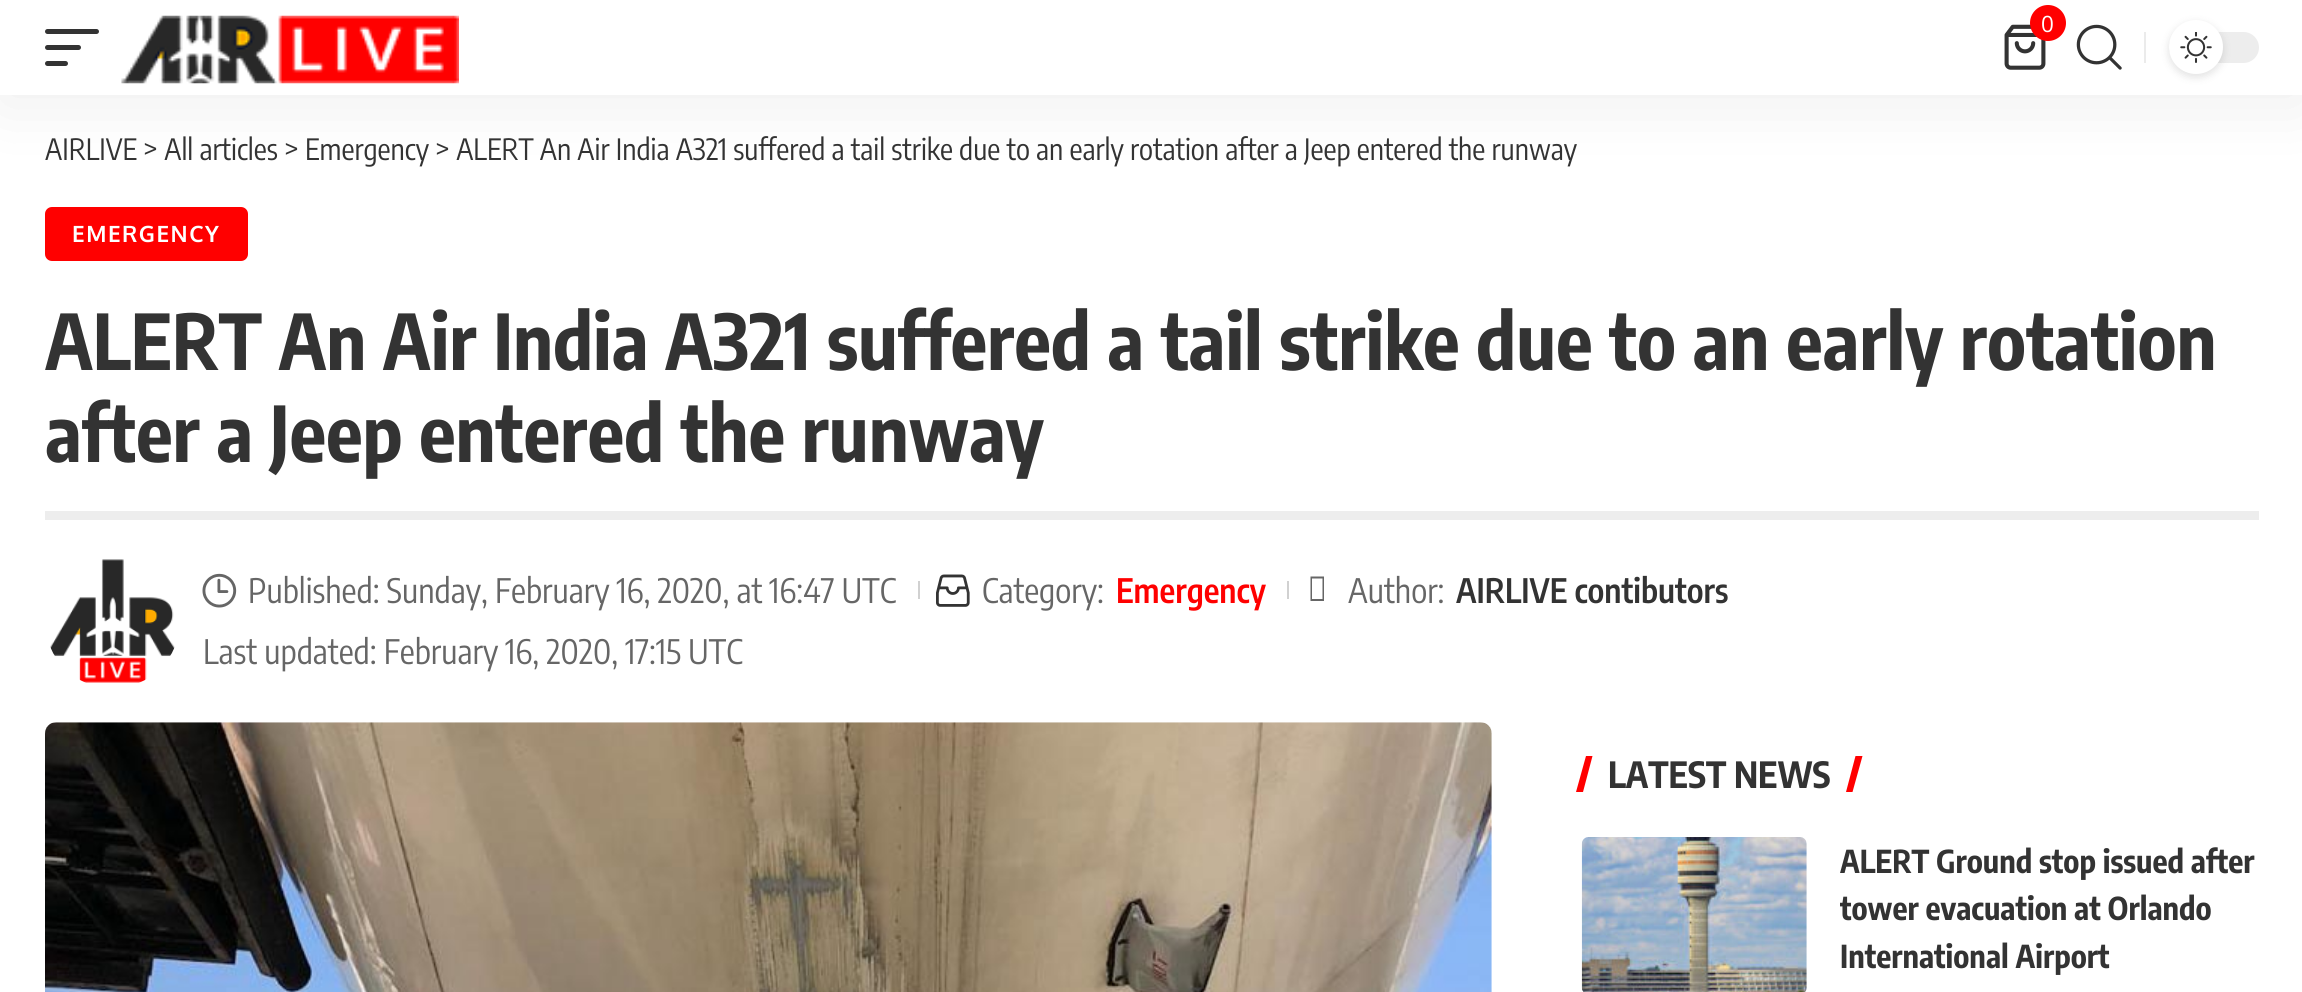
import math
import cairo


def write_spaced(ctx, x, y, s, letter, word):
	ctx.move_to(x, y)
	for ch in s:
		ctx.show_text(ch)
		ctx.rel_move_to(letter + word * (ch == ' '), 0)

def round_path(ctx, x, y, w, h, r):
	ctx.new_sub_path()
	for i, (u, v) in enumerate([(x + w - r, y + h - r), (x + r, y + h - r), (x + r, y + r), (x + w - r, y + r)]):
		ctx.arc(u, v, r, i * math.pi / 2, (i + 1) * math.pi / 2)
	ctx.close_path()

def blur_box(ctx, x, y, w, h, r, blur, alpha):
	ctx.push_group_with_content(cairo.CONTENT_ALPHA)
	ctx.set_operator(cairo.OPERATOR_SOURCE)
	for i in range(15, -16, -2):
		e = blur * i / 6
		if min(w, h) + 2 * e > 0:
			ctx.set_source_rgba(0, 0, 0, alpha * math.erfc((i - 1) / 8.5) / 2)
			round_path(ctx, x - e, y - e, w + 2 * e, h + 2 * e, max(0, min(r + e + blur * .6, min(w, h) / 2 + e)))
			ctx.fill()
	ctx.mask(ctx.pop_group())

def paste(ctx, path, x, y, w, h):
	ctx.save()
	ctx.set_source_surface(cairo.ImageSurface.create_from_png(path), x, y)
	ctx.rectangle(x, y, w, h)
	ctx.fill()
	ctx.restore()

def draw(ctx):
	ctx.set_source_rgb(1, 1, 1)
	ctx.paint()
	ctx.set_source_rgb(0, 0, 0)
	blur_box(ctx, 0, 9, 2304, 95, 0, 34, 0.07)
	ctx.set_source_rgb(1, 1, 1)
	ctx.rectangle(0, 0, 2302, 95)
	ctx.fill()
	ctx.set_source_rgb(0.2, 0.2, 0.2)
	round_path(ctx, 45, 29, 54, 5, 2.5)
	ctx.fill()
	round_path(ctx, 45, 45, 36, 5, 2.5)
	ctx.fill()
	round_path(ctx, 45, 61, 23, 5, 2.5)
	ctx.fill()
	paste(ctx, 'media/1.png', 121, 15, 338, 69)
	paste(ctx, 'media/2.png', 2004, 24, 42, 46)
	ctx.set_source_rgb(1, 0, 0)
	ctx.arc(2048, 23, 18, 0, 2 * math.pi)
	ctx.fill()
	ctx.select_font_face('Open Sans')
	ctx.set_font_size(22.5)
	ctx.set_source_rgb(1, 1, 1)
	ctx.move_to(2041, 32)
	ctx.show_text('0')
	paste(ctx, 'media/3.png', 2076, 24, 46, 46)
	ctx.set_source_rgb(0.918, 0.918, 0.918)
	ctx.rectangle(2144, 32, 2, 31)
	ctx.fill()
	ctx.set_source_rgb(0.929, 0.929, 0.929)
	round_path(ctx, 2169, 32, 90, 31, 15.5)
	ctx.fill()
	ctx.set_source_rgb(0, 0, 0)
	blur_box(ctx, 2169, 23, 54, 54, 27, 4.5, 0.12)
	ctx.set_source_rgb(1, 1, 1)
	ctx.arc(2196, 47, 27, 0, 2 * math.pi)
	ctx.fill()
	paste(ctx, 'media/4.png', 2180, 32, 32, 31)
	ctx.select_font_face('Encode Sans Condensed')
	ctx.set_font_size(29.25)
	ctx.set_source_rgb(0.2, 0.2, 0.2)
	ctx.move_to(45, 160)
	ctx.show_text('AIRLIVE > All articles > Emergency > ALERT An Air India A321 suffered a tail strike due to an early rotation after a Jeep entered the runway')
	ctx.set_source_rgb(1, 0, 0)
	round_path(ctx, 45, 207, 203, 54, 7)
	ctx.fill()
	ctx.select_font_face('Oxygen', cairo.FONT_SLANT_NORMAL, cairo.FONT_WEIGHT_BOLD)
	ctx.set_font_size(22.5)
	ctx.set_source_rgb(1, 1, 1)
	write_spaced(ctx, 72, 242, 'EMERGENCY', 1.5, 0)
	ctx.select_font_face('Encode Sans Condensed', cairo.FONT_SLANT_NORMAL, cairo.FONT_WEIGHT_BOLD)
	ctx.set_font_size(76.5)
	ctx.set_source_rgb(0.2, 0.2, 0.2)
	ctx.move_to(45, 370)
	ctx.show_text('ALERT An Air India A321 suffered a tail strike due to an early rotation')
	ctx.move_to(45, 462)
	ctx.show_text('after a Jeep entered the runway')
	ctx.set_source_rgb(0.929, 0.929, 0.929)
	ctx.rectangle(45, 511, 2214, 9)
	ctx.fill()
	paste(ctx, 'media/5.png', 50, 559, 125, 124)
	paste(ctx, 'media/6.png', 202, 573, 35, 35)
	ctx.select_font_face('Encode Sans Condensed')
	ctx.set_font_size(33.6)
	ctx.set_source_rgb(0.4, 0.4, 0.4)
	ctx.move_to(248, 603)
	ctx.show_text('Published: Sunday, February 16, 2020, at 16:47 UTC')
	ctx.set_source_rgb(0.82, 0.82, 0.82)
	ctx.rectangle(918, 581, 2, 18)
	ctx.fill()
	paste(ctx, 'media/7.png', 936, 574, 34, 33)
	ctx.set_source_rgb(0.4, 0.4, 0.4)
	ctx.move_to(982, 603)
	ctx.show_text('Category:')
	ctx.select_font_face('Encode Sans Condensed SemiBold')
	ctx.set_source_rgb(1, 0, 0)
	ctx.move_to(1116, 603)
	ctx.show_text('Emergency')
	ctx.set_source_rgb(0.82, 0.82, 0.82)
	ctx.rectangle(1287, 581, 2, 18)
	ctx.fill()
	ctx.set_source_rgb(0.4, 0.4, 0.4)
	ctx.new_path()
	ctx.move_to(1310.5, 601)
	ctx.line_to(1310.5, 576.5)
	ctx.line_to(1324, 576.5)
	ctx.line_to(1324, 601)
	ctx.close_path()
	ctx.move_to(1312, 599)
	ctx.line_to(1322.5, 599)
	ctx.line_to(1322.5, 578.5)
	ctx.line_to(1312, 578.5)
	ctx.close_path()
	ctx.fill()
	ctx.select_font_face('Encode Sans Condensed')
	ctx.move_to(1348, 603)
	ctx.show_text('Author:')
	ctx.select_font_face('Encode Sans Condensed SemiBold')
	ctx.set_source_rgb(0.2, 0.2, 0.2)
	ctx.move_to(1456, 603)
	ctx.show_text('AIRLIVE contibutors')
	ctx.select_font_face('Encode Sans Condensed')
	ctx.set_source_rgb(0.4, 0.4, 0.4)
	ctx.move_to(203, 664)
	ctx.show_text('Last updated: February 16, 2020, 17:15 UTC')
	paste(ctx, 'media/8.png', 45, 722, 1447, 270)
	ctx.set_source_rgb(1, 0, 0)
	ctx.new_path()
	ctx.move_to(1855.5, 756)
	ctx.line_to(1862.5, 756)
	ctx.line_to(1852.5, 792)
	ctx.line_to(1846, 792)
	ctx.close_path()
	ctx.fill()
	ctx.new_path()
	ctx.move_to(1586, 756)
	ctx.line_to(1592.5, 756)
	ctx.line_to(1583, 792)
	ctx.line_to(1576, 792)
	ctx.close_path()
	ctx.fill()
	ctx.select_font_face('Encode Sans Condensed', cairo.FONT_SLANT_NORMAL, cairo.FONT_WEIGHT_BOLD)
	ctx.set_font_size(36)
	ctx.set_source_rgb(0.2, 0.2, 0.2)
	ctx.move_to(1608, 788)
	ctx.show_text('LATEST NEWS')
	paste(ctx, 'media/9.png', 1581, 837, 226, 155)
	ctx.set_font_size(31.5)
	for x, y, s in [
		(1840, 873, 'ALERT Ground stop issued after'),
		(1840, 920, 'tower evacuation at Orlando'),
		(1840, 968, 'International Airport'),
	]:
		ctx.move_to(x, y)
		ctx.show_text(s)


surface = cairo.ImageSurface(cairo.FORMAT_RGB24, 2302, 992)
ctx = cairo.Context(surface)
options = cairo.FontOptions()
options.set_hint_metrics(cairo.HINT_METRICS_OFF)
options.set_hint_style(cairo.HINT_STYLE_NONE)
ctx.set_font_options(options)
ctx.set_miter_limit(4)
draw(ctx)
surface.write_to_png('image.png')
